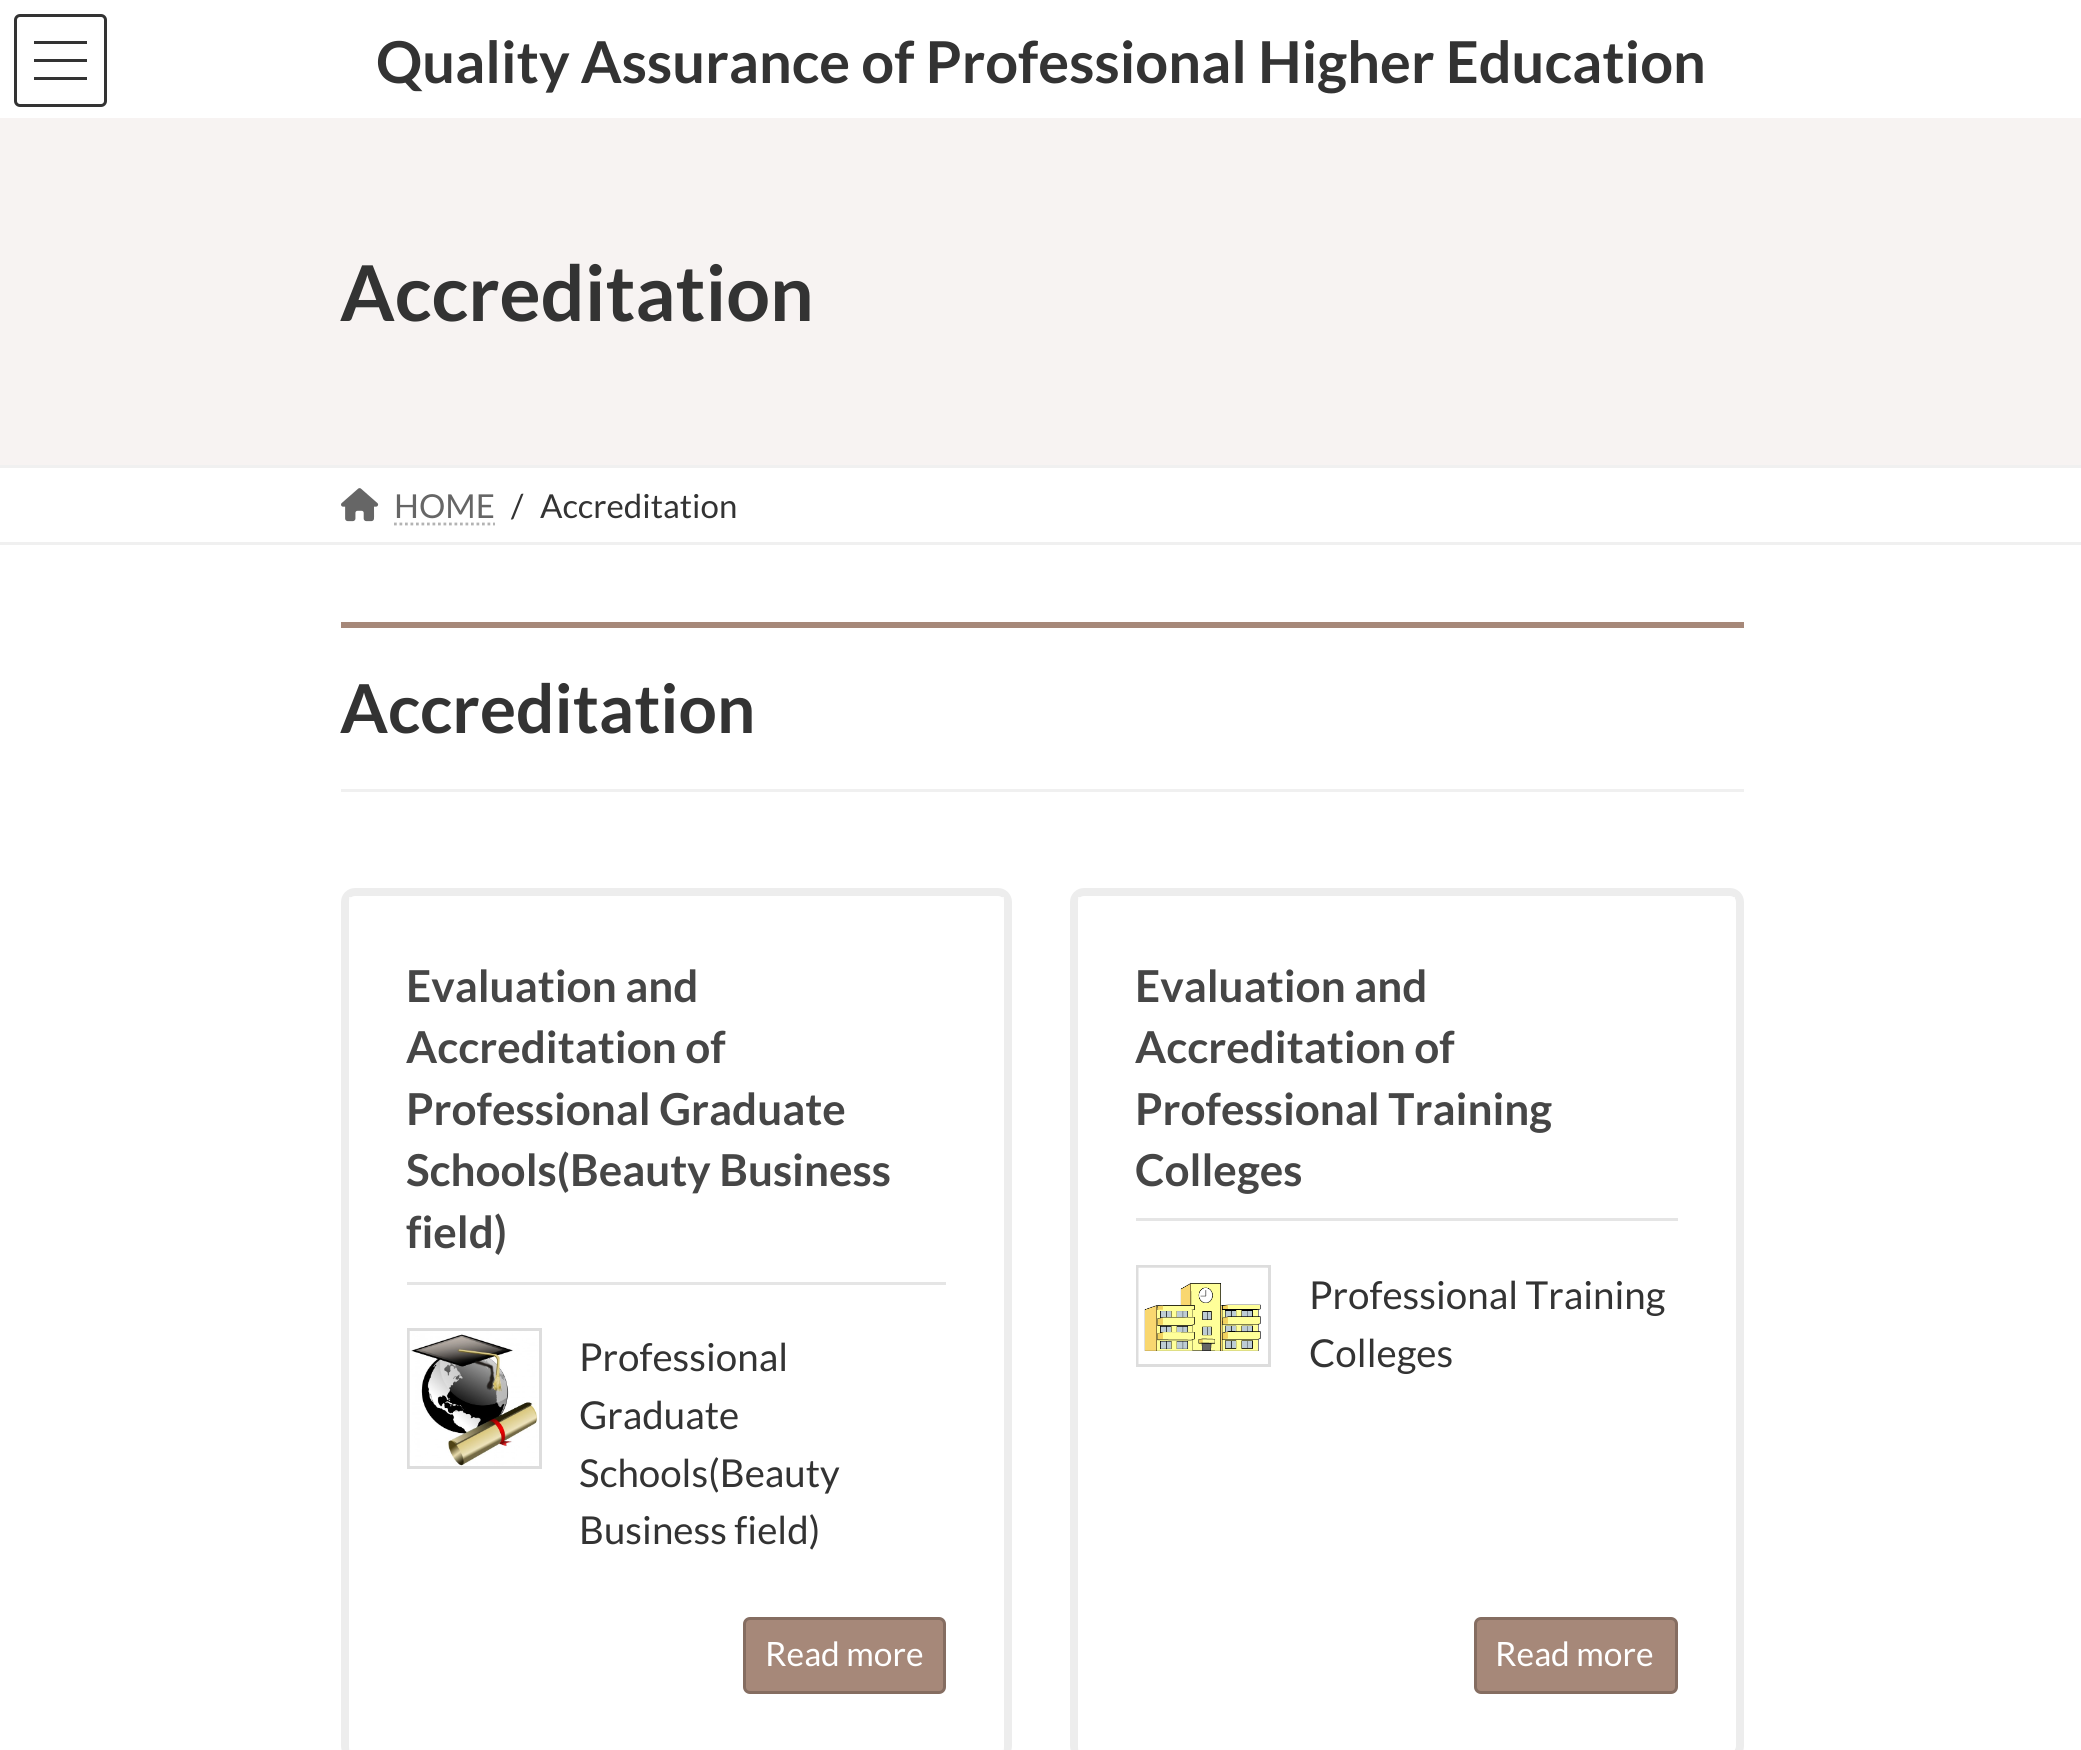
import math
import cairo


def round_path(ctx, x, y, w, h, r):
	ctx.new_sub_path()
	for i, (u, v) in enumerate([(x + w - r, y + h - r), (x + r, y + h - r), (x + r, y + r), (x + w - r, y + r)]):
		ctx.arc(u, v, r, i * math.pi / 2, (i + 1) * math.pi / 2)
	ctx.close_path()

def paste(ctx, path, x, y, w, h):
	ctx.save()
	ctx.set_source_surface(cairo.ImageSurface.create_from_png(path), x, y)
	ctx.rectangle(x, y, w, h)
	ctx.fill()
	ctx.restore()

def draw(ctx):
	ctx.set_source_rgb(1, 1, 1)
	ctx.paint()
	ctx.set_source_rgb(0.2, 0.2, 0.2)
	ctx.rectangle(34, 41, 53, 3)
	ctx.rectangle(34, 59, 53, 3)
	ctx.rectangle(34, 77, 53, 3)
	ctx.fill()
	round_path(ctx, 15.5, 15.5, 90, 90, 4.5)
	ctx.set_line_width(3)
	ctx.stroke()
	ctx.select_font_face('Lato', cairo.FONT_SLANT_NORMAL, cairo.FONT_WEIGHT_BOLD)
	ctx.set_font_size(57.75)
	ctx.move_to(376, 83)
	ctx.show_text('Quality Assurance of Professional Higher Education')
	ctx.set_source_rgb(0.965, 0.953, 0.949)
	ctx.rectangle(0, 118, 2081, 347)
	ctx.fill()
	ctx.set_font_size(77)
	ctx.set_source_rgb(0.2, 0.2, 0.2)
	ctx.move_to(340, 321)
	ctx.show_text('Accreditation')
	ctx.set_source_rgb(0.941, 0.941, 0.941)
	ctx.rectangle(0, 465, 2081, 3)
	ctx.fill()
	ctx.rectangle(0, 542, 2081, 3)
	ctx.fill()
	paste(ctx, 'media/1.png', 341, 488, 38, 34)
	ctx.select_font_face('Lato')
	ctx.set_font_size(33)
	ctx.set_source_rgb(0.4, 0.4, 0.4)
	ctx.move_to(394, 518)
	ctx.show_text('HOME')
	ctx.new_path()
	ctx.move_to(394, 524)
	ctx.line_to(495, 524)
	ctx.set_source_rgb(0.702, 0.702, 0.702)
	ctx.set_line_width(2.8)
	ctx.set_dash([2.75, 2.75])
	ctx.stroke()
	ctx.set_source_rgb(0.2, 0.2, 0.2)
	ctx.move_to(511, 518)
	ctx.show_text('/')
	ctx.move_to(540, 518)
	ctx.show_text('Accreditation')
	ctx.set_source_rgb(0.651, 0.533, 0.475)
	ctx.rectangle(341, 622, 1403, 6)
	ctx.fill()
	ctx.set_source_rgb(0.941, 0.941, 0.941)
	ctx.rectangle(341, 789, 1403, 3)
	ctx.fill()
	ctx.select_font_face('Lato', cairo.FONT_SLANT_NORMAL, cairo.FONT_WEIGHT_BOLD)
	ctx.set_font_size(67.5)
	ctx.set_source_rgb(0.2, 0.2, 0.2)
	ctx.move_to(340, 733)
	ctx.show_text('Accreditation')
	round_path(ctx, 345, 892, 663, 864, 10)
	ctx.set_source_rgb(0.929, 0.929, 0.929)
	ctx.set_line_width(8)
	ctx.set_dash([])
	ctx.stroke()
	ctx.rectangle(350.5, 898.5, 652, 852)
	ctx.set_source_rgba(1, 1, 1, 0.8)
	ctx.set_line_width(3)
	ctx.stroke()
	ctx.set_source_rgb(0.898, 0.898, 0.898)
	ctx.rectangle(407, 1282, 539, 3)
	ctx.fill()
	ctx.set_font_size(44)
	ctx.set_source_rgb(0.275, 0.275, 0.275)
	for x, y, s in [
		(406, 1002, 'Evaluation and'),
		(406, 1063, 'Accreditation of'),
		(406, 1125, 'Professional Graduate'),
		(406, 1186, 'Schools(Beauty Business'),
		(406, 1248, 'field)'),
	]:
		ctx.move_to(x, y)
		ctx.show_text(s)
	ctx.rectangle(408.5, 1329.5, 132, 138)
	ctx.set_source_rgb(0.867, 0.867, 0.867)
	ctx.stroke()
	paste(ctx, 'media/2.png', 409, 1331, 129, 135)
	ctx.select_font_face('Lato')
	ctx.set_font_size(38.5)
	ctx.set_source_rgb(0.2, 0.2, 0.2)
	for x, y, s in [
		(579, 1371, 'Professional'),
		(579, 1429, 'Graduate'),
		(579, 1487, 'Schools(Beauty'),
		(579, 1544, 'Business field)'),
	]:
		ctx.move_to(x, y)
		ctx.show_text(s)
	ctx.set_source_rgb(0.651, 0.533, 0.475)
	round_path(ctx, 744.5, 1618.5, 200, 74, 5.5)
	ctx.fill_preserve()
	ctx.set_source_rgb(0.522, 0.427, 0.38)
	ctx.stroke()
	ctx.set_font_size(33.5)
	ctx.set_source_rgb(1, 1, 1)
	ctx.move_to(765, 1666)
	ctx.show_text('Read more')
	round_path(ctx, 1074, 892, 666, 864, 10)
	ctx.set_source_rgb(0.929, 0.929, 0.929)
	ctx.set_line_width(8)
	ctx.stroke()
	ctx.rectangle(1079.5, 898.5, 654, 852)
	ctx.set_source_rgba(1, 1, 1, 0.8)
	ctx.set_line_width(3)
	ctx.stroke()
	ctx.set_source_rgb(0.898, 0.898, 0.898)
	ctx.rectangle(1136, 1218, 542, 3)
	ctx.fill()
	ctx.select_font_face('Lato', cairo.FONT_SLANT_NORMAL, cairo.FONT_WEIGHT_BOLD)
	ctx.set_font_size(44)
	ctx.set_source_rgb(0.275, 0.275, 0.275)
	for x, y, s in [
		(1135, 1002, 'Evaluation and'),
		(1135, 1063, 'Accreditation of'),
		(1135, 1125, 'Professional Training'),
		(1135, 1186, 'Colleges'),
	]:
		ctx.move_to(x, y)
		ctx.show_text(s)
	ctx.rectangle(1137.5, 1266.5, 132, 99)
	ctx.set_source_rgb(0.867, 0.867, 0.867)
	ctx.stroke()
	paste(ctx, 'media/3.png', 1138, 1267, 130, 97)
	ctx.select_font_face('Lato')
	ctx.set_font_size(38.5)
	ctx.set_source_rgb(0.2, 0.2, 0.2)
	ctx.move_to(1309, 1309)
	ctx.show_text('Professional Training')
	ctx.move_to(1309, 1367)
	ctx.show_text('Colleges')
	ctx.set_source_rgb(0.651, 0.533, 0.475)
	round_path(ctx, 1475.5, 1618.5, 201, 74, 5.5)
	ctx.fill_preserve()
	ctx.set_source_rgb(0.522, 0.427, 0.38)
	ctx.stroke()
	ctx.set_font_size(33.5)
	ctx.set_source_rgb(1, 1, 1)
	ctx.move_to(1495, 1666)
	ctx.show_text('Read more')


surface = cairo.ImageSurface(cairo.FORMAT_RGB24, 2081, 1750)
ctx = cairo.Context(surface)
options = cairo.FontOptions()
options.set_hint_metrics(cairo.HINT_METRICS_OFF)
options.set_hint_style(cairo.HINT_STYLE_NONE)
ctx.set_font_options(options)
ctx.set_miter_limit(4)
draw(ctx)
surface.write_to_png('image.png')
